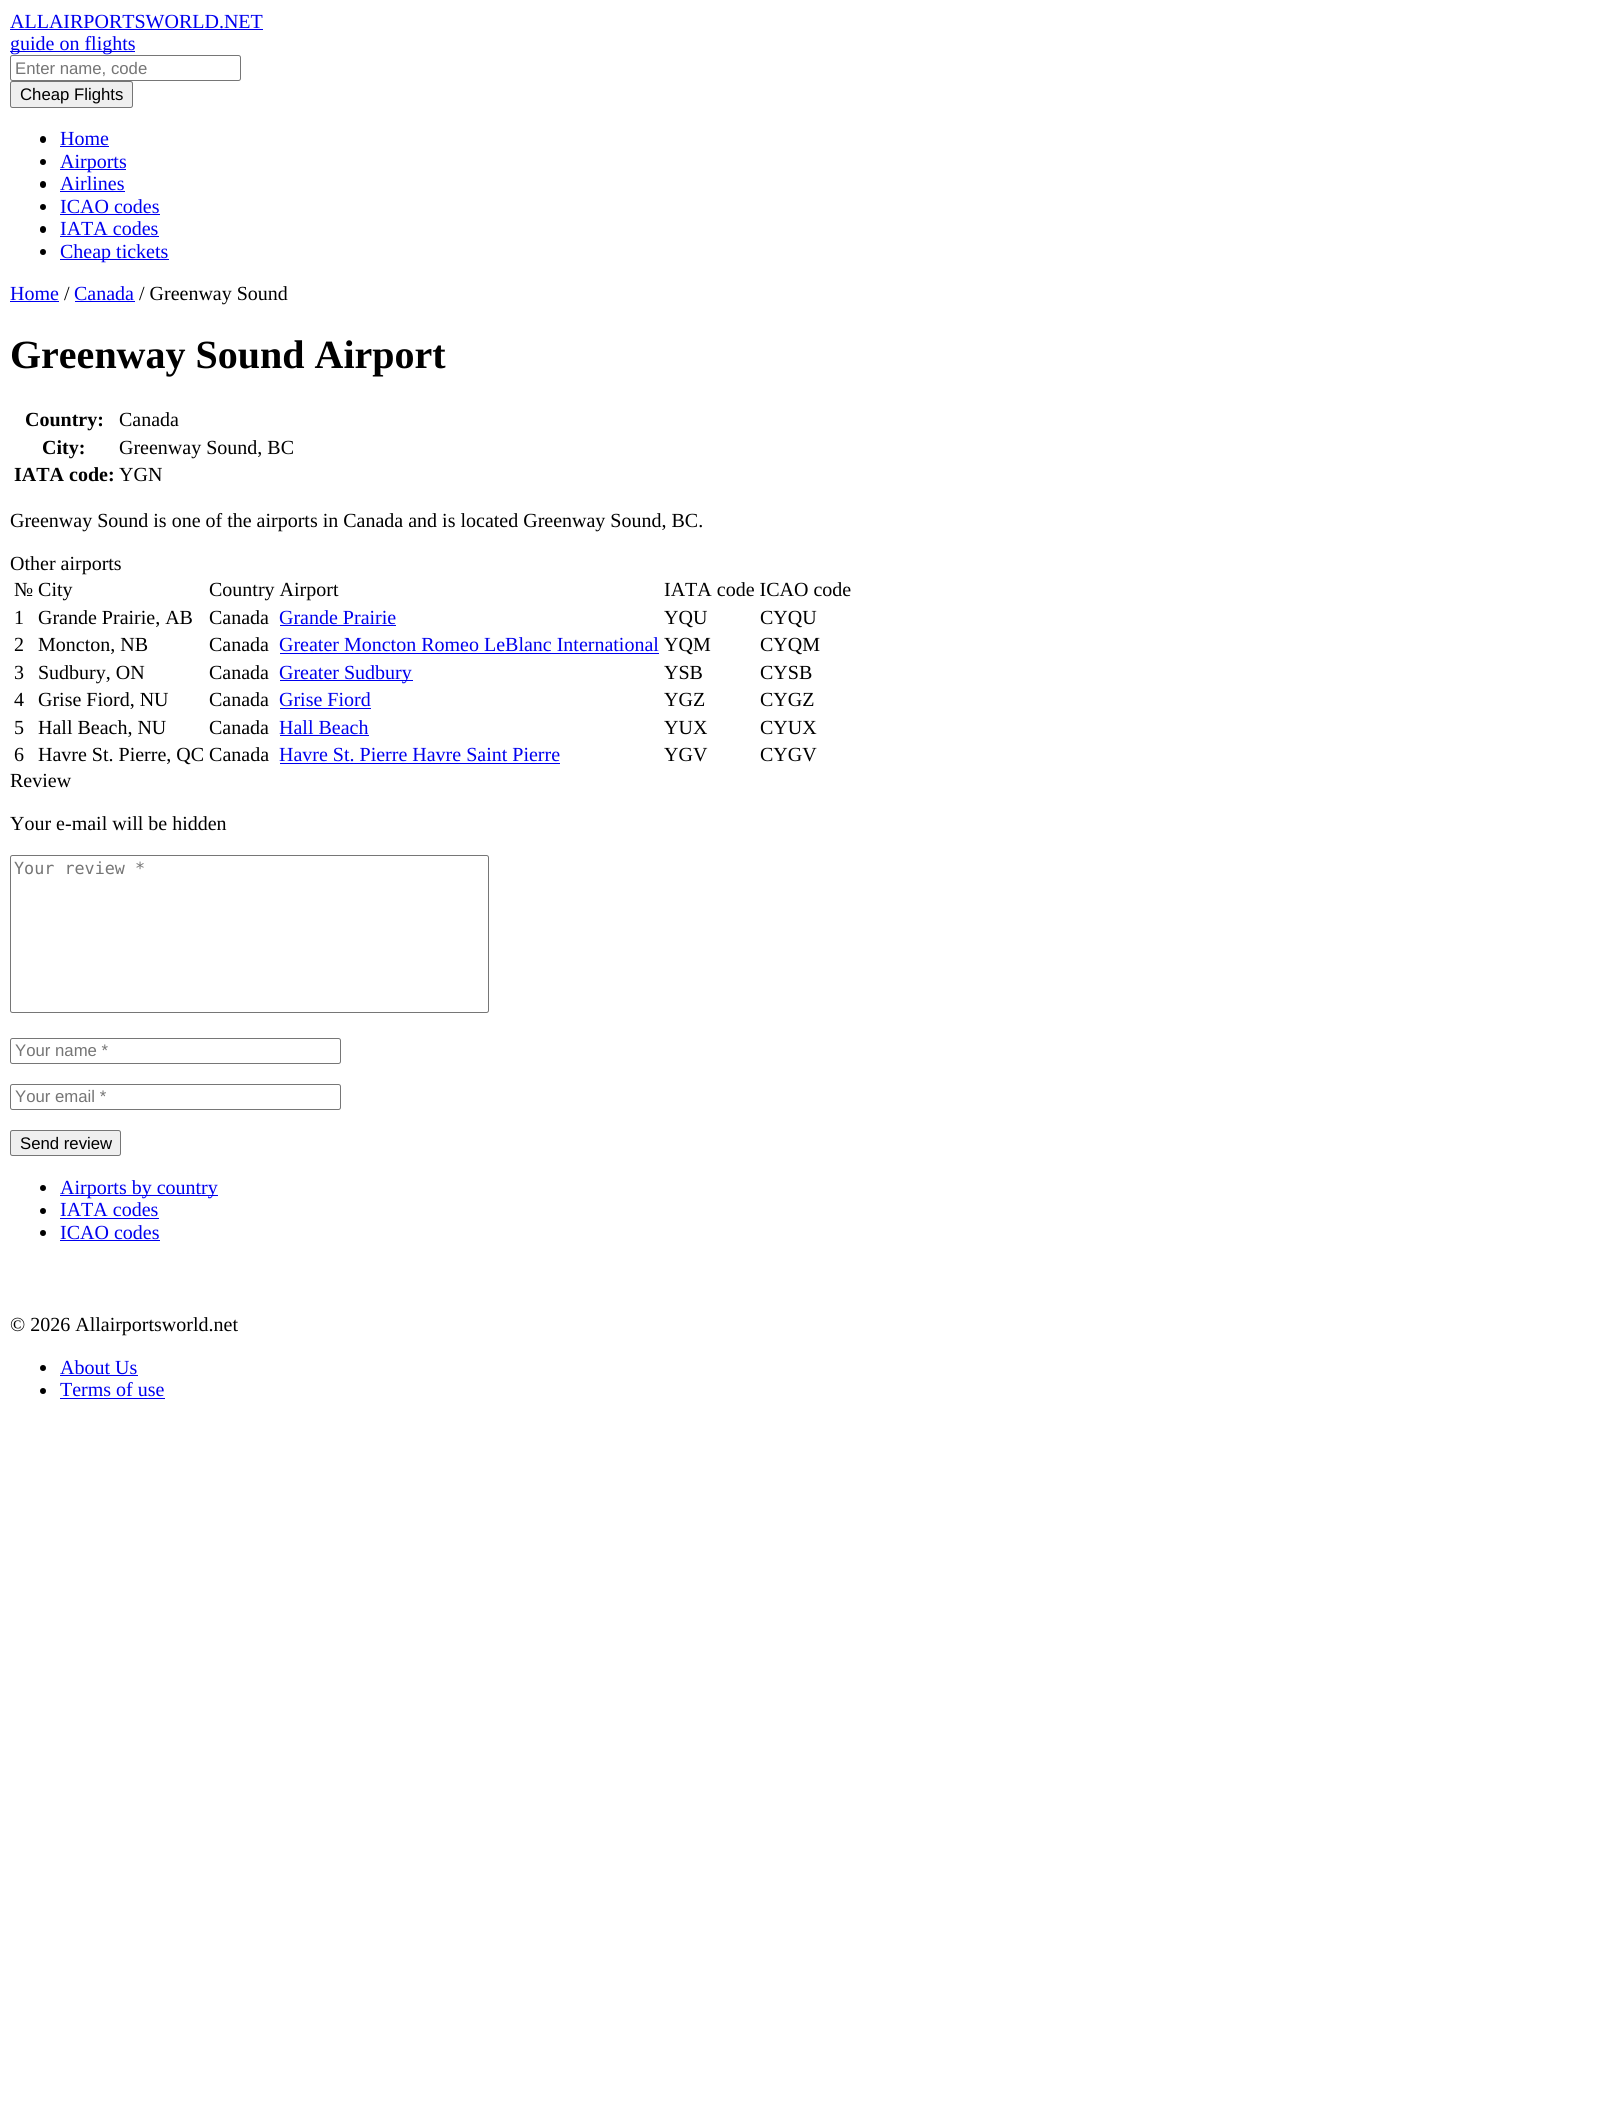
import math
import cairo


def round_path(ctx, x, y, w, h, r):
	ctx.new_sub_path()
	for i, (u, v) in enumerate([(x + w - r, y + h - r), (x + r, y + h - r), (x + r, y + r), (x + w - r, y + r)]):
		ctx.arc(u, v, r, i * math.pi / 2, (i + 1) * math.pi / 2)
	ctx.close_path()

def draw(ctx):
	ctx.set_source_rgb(1, 1, 1)
	ctx.paint()
	ctx.select_font_face('Liberation Serif')
	ctx.set_font_size(20)
	ctx.set_source_rgb(0, 0, 0.933)
	ctx.move_to(10, 28)
	ctx.show_text('ALLAIRPORTSWORLD.NET')
	ctx.rectangle(10, 29, 253, 1)
	ctx.fill()
	ctx.rectangle(10, 51, 125, 1)
	ctx.fill()
	ctx.move_to(10, 50)
	ctx.show_text('guide on flights')
	round_path(ctx, 10.5, 55.5, 230, 25, 2)
	ctx.set_source_rgb(0.463, 0.463, 0.463)
	ctx.set_line_width(1)
	ctx.stroke()
	ctx.select_font_face('Liberation Sans')
	ctx.set_font_size(16.75)
	ctx.set_source_rgb(0.459, 0.459, 0.459)
	ctx.move_to(15, 74)
	ctx.show_text('Enter name, code')
	ctx.set_source_rgb(0.937, 0.937, 0.937)
	round_path(ctx, 10.5, 81.5, 122, 26, 2)
	ctx.fill_preserve()
	ctx.set_source_rgb(0.463, 0.463, 0.463)
	ctx.stroke()
	ctx.set_source_rgb(0, 0, 0)
	ctx.move_to(20, 100)
	ctx.show_text('Cheap Flights')
	round_path(ctx, 40, 136, 6, 7, 3)
	ctx.fill()
	ctx.select_font_face('Liberation Serif')
	ctx.set_font_size(20)
	ctx.set_source_rgb(0, 0, 0.933)
	ctx.move_to(60, 145)
	ctx.show_text('Home')
	ctx.rectangle(60, 146, 49, 1)
	ctx.fill()
	ctx.set_source_rgb(0, 0, 0)
	ctx.arc(43, 162, 3, 0, 2 * math.pi)
	ctx.fill()
	ctx.set_source_rgb(0, 0, 0.933)
	ctx.rectangle(60, 169, 66, 1)
	ctx.fill()
	ctx.move_to(60, 168)
	ctx.show_text('Airports')
	ctx.set_source_rgb(0, 0, 0)
	round_path(ctx, 40, 181, 6, 7, 3)
	ctx.fill()
	ctx.set_source_rgb(0, 0, 0.933)
	ctx.move_to(60, 190)
	ctx.show_text('Airlines')
	ctx.rectangle(60, 191, 65, 1)
	ctx.fill()
	ctx.set_source_rgb(0, 0, 0)
	ctx.arc(43, 207, 3, 0, 2 * math.pi)
	ctx.fill()
	ctx.set_source_rgb(0, 0, 0.933)
	ctx.move_to(60, 213)
	ctx.show_text('ICAO codes')
	ctx.rectangle(60, 214, 100, 1)
	ctx.fill()
	ctx.set_source_rgb(0, 0, 0)
	round_path(ctx, 40, 226, 6, 7, 3)
	ctx.fill()
	ctx.set_source_rgb(0, 0, 0.933)
	ctx.move_to(60, 235)
	ctx.show_text('IATA codes')
	ctx.rectangle(60, 236, 99, 1)
	ctx.fill()
	ctx.set_source_rgb(0, 0, 0)
	ctx.arc(43, 252, 3, 0, 2 * math.pi)
	ctx.fill()
	ctx.set_source_rgb(0, 0, 0.933)
	ctx.rectangle(60, 259, 109, 1)
	ctx.fill()
	ctx.move_to(60, 258)
	ctx.show_text('Cheap tickets')
	ctx.move_to(10, 300)
	ctx.show_text('Home')
	ctx.rectangle(10, 301, 49, 1)
	ctx.fill()
	ctx.set_source_rgb(0, 0, 0)
	ctx.move_to(64, 300)
	ctx.show_text('/')
	ctx.set_source_rgb(0, 0, 0.933)
	ctx.move_to(74, 300)
	ctx.show_text('Canada')
	ctx.rectangle(75, 301, 60, 1)
	ctx.fill()
	ctx.set_source_rgb(0, 0, 0)
	ctx.move_to(139, 300)
	ctx.show_text('/ Greenway Sound')
	ctx.select_font_face('Liberation Serif', cairo.FONT_SLANT_NORMAL, cairo.FONT_WEIGHT_BOLD)
	ctx.set_font_size(40)
	ctx.move_to(10, 368)
	ctx.show_text('Greenway Sound Airport')
	ctx.set_font_size(20)
	ctx.move_to(25, 426)
	ctx.show_text('Country:')
	ctx.select_font_face('Liberation Serif')
	ctx.move_to(119, 426)
	ctx.show_text('Canada')
	ctx.select_font_face('Liberation Serif', cairo.FONT_SLANT_NORMAL, cairo.FONT_WEIGHT_BOLD)
	ctx.move_to(42, 454)
	ctx.show_text('City:')
	ctx.select_font_face('Liberation Serif')
	ctx.move_to(119, 454)
	ctx.show_text('Greenway Sound, BC')
	ctx.select_font_face('Liberation Serif', cairo.FONT_SLANT_NORMAL, cairo.FONT_WEIGHT_BOLD)
	ctx.move_to(14, 481)
	ctx.show_text('IATA code:')
	ctx.select_font_face('Liberation Serif')
	for x, y, s in [
		(119, 481, 'YGN'),
		(10, 527, 'Greenway Sound is one of the airports in Canada and is located Greenway Sound, BC.'),
		(10, 570, 'Other airports'),
		(14, 596, '№ City'),
		(209, 596, 'Country Airport'),
		(664, 596, 'IATA code ICAO code'),
		(14, 624, '1'),
		(38, 624, 'Grande Prairie, AB'),
		(209, 624, 'Canada'),
	]:
		ctx.move_to(x, y)
		ctx.show_text(s)
	ctx.set_source_rgb(0, 0, 0.933)
	ctx.move_to(279, 624)
	ctx.show_text('Grande Prairie')
	ctx.rectangle(280, 625, 116, 1)
	ctx.fill()
	ctx.set_source_rgb(0, 0, 0)
	for x, y, s in [
		(664, 624, 'YQU'),
		(760, 624, 'CYQU'),
		(14, 651, '2'),
		(38, 651, 'Moncton, NB'),
		(209, 651, 'Canada'),
	]:
		ctx.move_to(x, y)
		ctx.show_text(s)
	ctx.set_source_rgb(0, 0, 0.933)
	ctx.move_to(279, 651)
	ctx.show_text('Greater Moncton Romeo LeBlanc International')
	ctx.rectangle(280, 653, 379, 1)
	ctx.fill()
	ctx.set_source_rgb(0, 0, 0)
	for x, y, s in [
		(664, 651, 'YQM'),
		(760, 651, 'CYQM'),
		(14, 679, '3'),
		(38, 679, 'Sudbury, ON'),
		(209, 679, 'Canada'),
	]:
		ctx.move_to(x, y)
		ctx.show_text(s)
	ctx.set_source_rgb(0, 0, 0.933)
	ctx.rectangle(280, 680, 133, 1)
	ctx.fill()
	ctx.move_to(279, 679)
	ctx.show_text('Greater Sudbury')
	ctx.set_source_rgb(0, 0, 0)
	for x, y, s in [
		(664, 679, 'YSB'),
		(760, 679, 'CYSB'),
		(14, 706, '4'),
		(38, 706, 'Grise Fiord, NU'),
		(209, 706, 'Canada'),
	]:
		ctx.move_to(x, y)
		ctx.show_text(s)
	ctx.set_source_rgb(0, 0, 0.933)
	ctx.move_to(279, 706)
	ctx.show_text('Grise Fiord')
	ctx.rectangle(280, 708, 91, 1)
	ctx.fill()
	ctx.set_source_rgb(0, 0, 0)
	for x, y, s in [
		(664, 706, 'YGZ'),
		(760, 706, 'CYGZ'),
		(14, 734, '5'),
		(38, 734, 'Hall Beach, NU'),
		(209, 734, 'Canada'),
	]:
		ctx.move_to(x, y)
		ctx.show_text(s)
	ctx.set_source_rgb(0, 0, 0.933)
	ctx.move_to(279, 734)
	ctx.show_text('Hall Beach')
	ctx.rectangle(280, 735, 89, 1)
	ctx.fill()
	ctx.set_source_rgb(0, 0, 0)
	for x, y, s in [
		(664, 734, 'YUX'),
		(760, 734, 'CYUX'),
		(14, 761, '6'),
		(38, 761, 'Havre St. Pierre, QC Canada'),
	]:
		ctx.move_to(x, y)
		ctx.show_text(s)
	ctx.set_source_rgb(0, 0, 0.933)
	ctx.move_to(279, 761)
	ctx.show_text('Havre St. Pierre Havre Saint Pierre')
	ctx.rectangle(280, 763, 280, 1)
	ctx.fill()
	ctx.set_source_rgb(0, 0, 0)
	for x, y, s in [
		(664, 761, 'YGV'),
		(760, 761, 'CYGV'),
		(10, 787, 'Review'),
		(10, 830, 'Your e-mail will be hidden'),
	]:
		ctx.move_to(x, y)
		ctx.show_text(s)
	round_path(ctx, 10.5, 855.5, 478, 157, 2)
	ctx.set_source_rgb(0.463, 0.463, 0.463)
	ctx.stroke()
	ctx.select_font_face('DejaVu Sans Mono')
	ctx.set_font_size(16.75)
	ctx.set_source_rgb(0.459, 0.459, 0.459)
	ctx.move_to(14, 874)
	ctx.show_text('Your review *')
	round_path(ctx, 10.5, 1038.5, 330, 25, 2)
	ctx.set_source_rgb(0.463, 0.463, 0.463)
	ctx.stroke()
	ctx.select_font_face('Liberation Sans')
	ctx.set_source_rgb(0.459, 0.459, 0.459)
	ctx.move_to(15, 1056)
	ctx.show_text('Your name *')
	round_path(ctx, 10.5, 1084.5, 330, 25, 2)
	ctx.set_source_rgb(0.463, 0.463, 0.463)
	ctx.stroke()
	ctx.set_source_rgb(0.459, 0.459, 0.459)
	ctx.move_to(15, 1102)
	ctx.show_text('Your email *')
	ctx.set_source_rgb(0.937, 0.937, 0.937)
	round_path(ctx, 10.5, 1130.5, 110, 25, 2)
	ctx.fill_preserve()
	ctx.set_source_rgb(0.463, 0.463, 0.463)
	ctx.stroke()
	ctx.set_source_rgb(0, 0, 0)
	ctx.move_to(20, 1149)
	ctx.show_text('Send review')
	ctx.new_path()
	ctx.arc(43, 1188, 3, 0, 2 * math.pi)
	ctx.fill()
	ctx.set_source_rgb(0, 0, 0.933)
	ctx.rectangle(60, 1195, 158, 1)
	ctx.fill()
	ctx.select_font_face('Liberation Serif')
	ctx.set_font_size(20)
	ctx.move_to(60, 1194)
	ctx.show_text('Airports by country')
	ctx.set_source_rgb(0, 0, 0)
	ctx.new_path()
	ctx.arc(43, 1211, 3, 0, 2 * math.pi)
	ctx.fill()
	ctx.set_source_rgb(0, 0, 0.933)
	ctx.move_to(60, 1216)
	ctx.show_text('IATA codes')
	ctx.rectangle(60, 1218, 99, 1)
	ctx.fill()
	ctx.set_source_rgb(0, 0, 0)
	ctx.arc(43, 1233, 3, 0, 2 * math.pi)
	ctx.fill()
	ctx.set_source_rgb(0, 0, 0.933)
	ctx.move_to(60, 1239)
	ctx.show_text('ICAO codes')
	ctx.rectangle(60, 1240, 100, 1)
	ctx.fill()
	ctx.set_source_rgb(0, 0, 0)
	ctx.move_to(10, 1331)
	ctx.show_text('© 2026 Allairportsworld.net')
	ctx.new_path()
	ctx.arc(43, 1368, 3, 0, 2 * math.pi)
	ctx.fill()
	ctx.set_source_rgb(0, 0, 0.933)
	ctx.move_to(60, 1374)
	ctx.show_text('About Us')
	ctx.rectangle(60, 1375, 78, 1)
	ctx.fill()
	ctx.set_source_rgb(0, 0, 0)
	ctx.arc(43, 1391, 3, 0, 2 * math.pi)
	ctx.fill()
	ctx.set_source_rgb(0, 0, 0.933)
	ctx.move_to(60, 1396)
	ctx.show_text('Terms of use')
	ctx.rectangle(60, 1398, 105, 1)
	ctx.fill()


surface = cairo.ImageSurface(cairo.FORMAT_RGB24, 1612, 2127)
ctx = cairo.Context(surface)
options = cairo.FontOptions()
options.set_hint_metrics(cairo.HINT_METRICS_OFF)
options.set_hint_style(cairo.HINT_STYLE_NONE)
ctx.set_font_options(options)
ctx.set_miter_limit(4)
draw(ctx)
surface.write_to_png('image.png')
